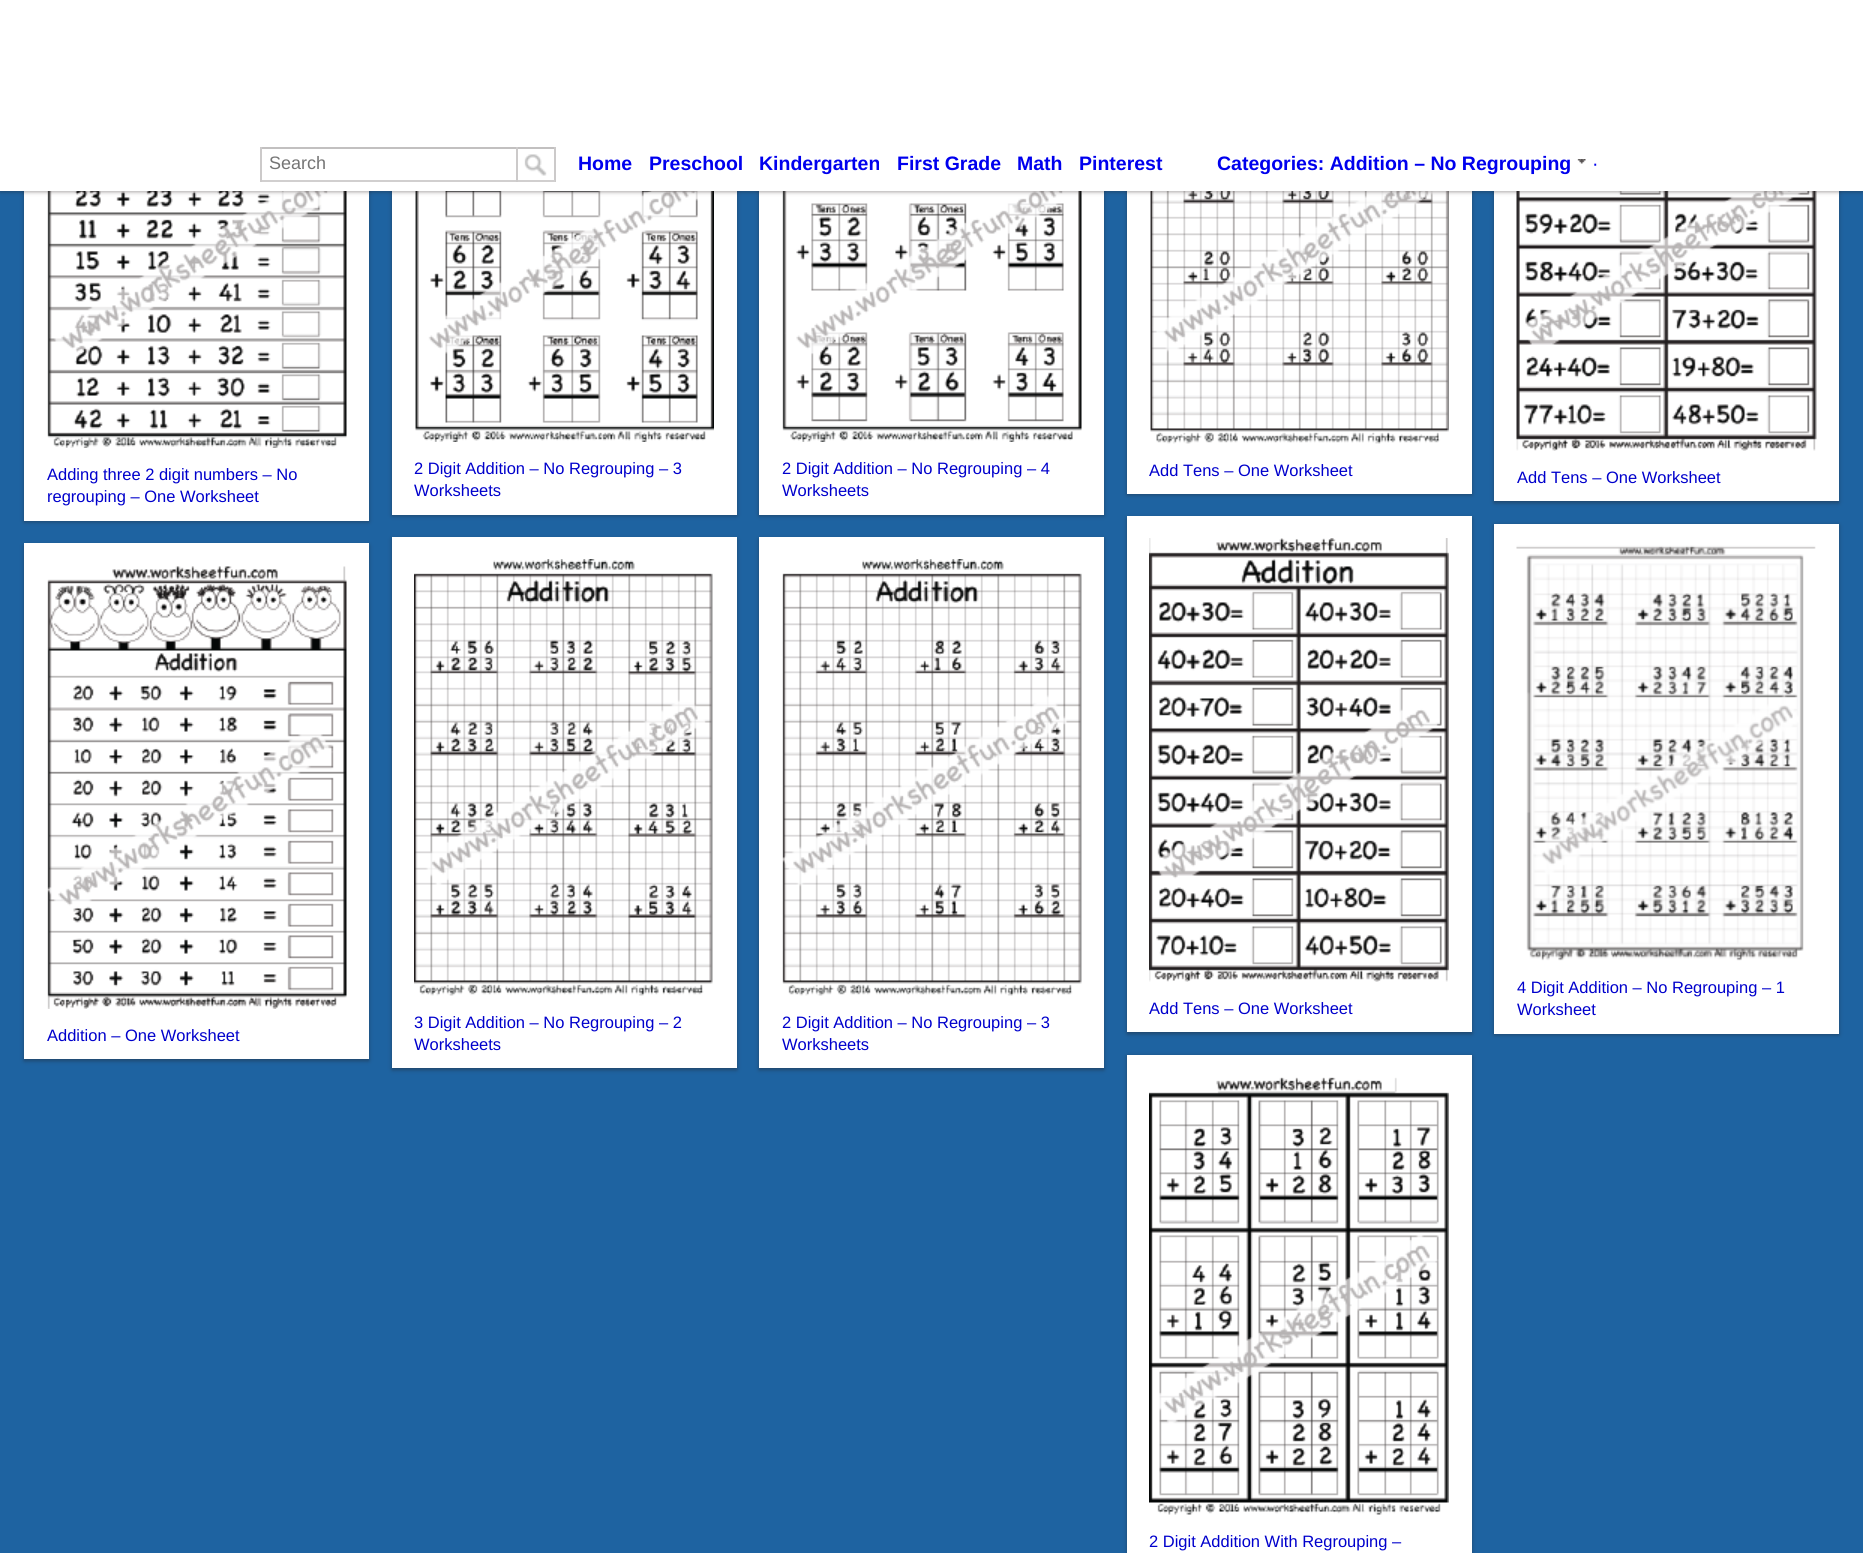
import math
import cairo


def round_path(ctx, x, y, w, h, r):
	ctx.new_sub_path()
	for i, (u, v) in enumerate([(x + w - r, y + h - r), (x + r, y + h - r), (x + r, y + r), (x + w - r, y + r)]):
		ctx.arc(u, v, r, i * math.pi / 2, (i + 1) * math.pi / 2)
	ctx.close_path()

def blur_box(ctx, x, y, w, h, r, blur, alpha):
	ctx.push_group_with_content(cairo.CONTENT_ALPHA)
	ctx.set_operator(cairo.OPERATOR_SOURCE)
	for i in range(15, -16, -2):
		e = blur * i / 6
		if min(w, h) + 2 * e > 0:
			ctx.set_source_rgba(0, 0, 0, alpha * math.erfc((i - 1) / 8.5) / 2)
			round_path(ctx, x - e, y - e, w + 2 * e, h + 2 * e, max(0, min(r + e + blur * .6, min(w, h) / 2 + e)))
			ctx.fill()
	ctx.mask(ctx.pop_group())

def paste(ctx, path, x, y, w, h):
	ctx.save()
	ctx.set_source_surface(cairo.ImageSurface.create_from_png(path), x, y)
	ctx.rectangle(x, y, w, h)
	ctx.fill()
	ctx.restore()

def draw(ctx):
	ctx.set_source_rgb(0.118, 0.388, 0.631)
	ctx.paint()
	ctx.set_source_rgb(0.133, 0.098, 0.098)
	blur_box(ctx, 24, -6, 345, 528, 0, 2, 0.4)
	ctx.set_source_rgb(1, 1, 1)
	ctx.rectangle(24, 191, 345, 330)
	ctx.fill()
	paste(ctx, 'media/3.png', 47, 191, 300, 257)
	ctx.set_source_rgb(0.133, 0.098, 0.098)
	blur_box(ctx, 392, -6, 345, 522, 0, 2, 0.4)
	ctx.set_source_rgb(1, 1, 1)
	ctx.rectangle(392, 191, 345, 324)
	ctx.fill()
	paste(ctx, 'media/4.png', 415, 191, 299, 251)
	ctx.set_source_rgb(0.133, 0.098, 0.098)
	blur_box(ctx, 759, -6, 345, 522, 0, 2, 0.4)
	ctx.set_source_rgb(1, 1, 1)
	ctx.rectangle(759, 191, 345, 324)
	ctx.fill()
	paste(ctx, 'media/5.png', 782, 191, 300, 251)
	ctx.set_source_rgb(0.133, 0.098, 0.098)
	blur_box(ctx, 1127, -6, 345, 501, 0, 2, 0.4)
	ctx.set_source_rgb(1, 1, 1)
	ctx.rectangle(1127, 191, 345, 303)
	ctx.fill()
	paste(ctx, 'media/6.png', 1150, 191, 299, 253)
	ctx.set_source_rgb(0.133, 0.098, 0.098)
	blur_box(ctx, 1494, -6, 345, 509, 0, 2, 0.4)
	ctx.set_source_rgb(1, 1, 1)
	ctx.rectangle(1494, 191, 345, 310)
	ctx.fill()
	paste(ctx, 'media/7.png', 1516, 191, 301, 260)
	ctx.set_source_rgb(0.133, 0.098, 0.098)
	blur_box(ctx, 0, 2, 1863, 190, 0, 2, 0.4)
	ctx.set_source_rgb(1, 1, 1)
	ctx.rectangle(0, 0, 1863, 191)
	ctx.fill()
	ctx.set_source_rgb(0.761, 0.753, 0.753)
	ctx.rectangle(260, 147, 295, 2)
	ctx.fill()
	ctx.set_source_rgb(0.82, 0.812, 0.812)
	ctx.rectangle(260, 180, 258, 2)
	ctx.fill()
	ctx.set_source_rgb(0.8, 0.792, 0.792)
	ctx.rectangle(260, 147, 2, 35)
	ctx.fill()
	ctx.select_font_face('Liberation Sans')
	ctx.set_font_size(18)
	ctx.set_source_rgb(0.459, 0.459, 0.459)
	ctx.move_to(269, 169)
	ctx.show_text('Search')
	ctx.set_source_rgb(0.8, 0.792, 0.792)
	ctx.rectangle(554, 147, 2, 35)
	ctx.fill()
	ctx.set_source_rgb(0.82, 0.812, 0.812)
	ctx.rectangle(516, 180, 39, 2)
	ctx.fill()
	ctx.set_source_rgb(0.8, 0.792, 0.792)
	ctx.rectangle(516, 147, 2, 35)
	ctx.fill()
	paste(ctx, 'media/1.png', 524, 154, 23, 22)
	ctx.select_font_face('Liberation Sans', cairo.FONT_SLANT_NORMAL, cairo.FONT_WEIGHT_BOLD)
	ctx.set_font_size(19.5)
	ctx.set_source_rgb(0, 0, 0.933)
	for x, y, s in [
		(578, 170, 'Home'),
		(649, 170, 'Preschool'),
		(759, 170, 'Kindergarten'),
		(897, 170, 'First Grade'),
		(1017, 170, 'Math'),
		(1079, 170, 'Pinterest'),
		(1217, 170, 'Categories: Addition – No Regrouping'),
	]:
		ctx.move_to(x, y)
		ctx.show_text(s)
	paste(ctx, 'media/2.png', 1577, 159, 9, 5)
	ctx.select_font_face('Liberation Sans')
	ctx.move_to(1592, 170)
	ctx.show_text('·')
	ctx.set_font_size(16.5)
	ctx.set_source_rgb(0, 0, 0.8)
	for x, y, s in [
		(47, 480, 'Adding three 2 digit numbers – No'),
		(47, 502, 'regrouping – One Worksheet'),
		(414, 474, '2 Digit Addition – No Regrouping – 3'),
		(414, 496, 'Worksheets'),
		(782, 474, '2 Digit Addition – No Regrouping – 4'),
		(782, 496, 'Worksheets'),
		(1149, 476, 'Add Tens – One Worksheet'),
		(1517, 483, 'Add Tens – One Worksheet'),
	]:
		ctx.move_to(x, y)
		ctx.show_text(s)
	ctx.set_source_rgb(0.133, 0.098, 0.098)
	blur_box(ctx, 1127, 518, 345, 516, 0, 2, 0.4)
	ctx.set_source_rgb(1, 1, 1)
	ctx.rectangle(1127, 516, 345, 516)
	ctx.fill()
	paste(ctx, 'media/8.png', 1149, 538, 300, 444)
	ctx.set_source_rgb(0, 0, 0.8)
	ctx.move_to(1149, 1014)
	ctx.show_text('Add Tens – One Worksheet')
	ctx.set_source_rgb(0.133, 0.098, 0.098)
	blur_box(ctx, 1494, 525, 345, 510, 0, 2, 0.4)
	ctx.set_source_rgb(1, 1, 1)
	ctx.rectangle(1494, 524, 345, 510)
	ctx.fill()
	paste(ctx, 'media/9.png', 1516, 545, 300, 416)
	ctx.set_source_rgb(0, 0, 0.8)
	ctx.move_to(1517, 993)
	ctx.show_text('4 Digit Addition – No Regrouping – 1')
	ctx.move_to(1517, 1015)
	ctx.show_text('Worksheet')
	ctx.set_source_rgb(0.133, 0.098, 0.098)
	blur_box(ctx, 24, 545, 345, 516, 0, 2, 0.4)
	ctx.set_source_rgb(1, 1, 1)
	ctx.rectangle(24, 543, 345, 516)
	ctx.fill()
	paste(ctx, 'media/10.png', 47, 566, 300, 443)
	ctx.set_source_rgb(0, 0, 0.8)
	ctx.move_to(47, 1041)
	ctx.show_text('Addition – One Worksheet')
	ctx.set_source_rgb(0.133, 0.098, 0.098)
	blur_box(ctx, 392, 539, 345, 531, 0, 2, 0.4)
	ctx.set_source_rgb(1, 1, 1)
	ctx.rectangle(392, 537, 345, 531)
	ctx.fill()
	paste(ctx, 'media/11.png', 414, 559, 299, 437)
	ctx.set_source_rgb(0, 0, 0.8)
	ctx.move_to(414, 1028)
	ctx.show_text('3 Digit Addition – No Regrouping – 2')
	ctx.move_to(414, 1050)
	ctx.show_text('Worksheets')
	ctx.set_source_rgb(0.133, 0.098, 0.098)
	blur_box(ctx, 759, 539, 345, 531, 0, 2, 0.4)
	ctx.set_source_rgb(1, 1, 1)
	ctx.rectangle(759, 537, 345, 531)
	ctx.fill()
	paste(ctx, 'media/12.png', 782, 559, 300, 437)
	ctx.set_source_rgb(0, 0, 0.8)
	ctx.move_to(782, 1028)
	ctx.show_text('2 Digit Addition – No Regrouping – 3')
	ctx.move_to(782, 1050)
	ctx.show_text('Worksheets')
	ctx.set_source_rgb(0.133, 0.098, 0.098)
	blur_box(ctx, 1127, 1056, 345, 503, 0, 2, 0.4)
	ctx.set_source_rgb(1, 1, 1)
	ctx.rectangle(1127, 1055, 345, 498)
	ctx.fill()
	paste(ctx, 'media/13.png', 1149, 1077, 300, 438)
	ctx.set_source_rgb(0, 0, 0.8)
	ctx.move_to(1149, 1547)
	ctx.show_text('2 Digit Addition With Regrouping –')


surface = cairo.ImageSurface(cairo.FORMAT_RGB24, 1863, 1553)
ctx = cairo.Context(surface)
options = cairo.FontOptions()
options.set_hint_metrics(cairo.HINT_METRICS_OFF)
options.set_hint_style(cairo.HINT_STYLE_NONE)
ctx.set_font_options(options)
ctx.set_miter_limit(4)
draw(ctx)
surface.write_to_png('image.png')
